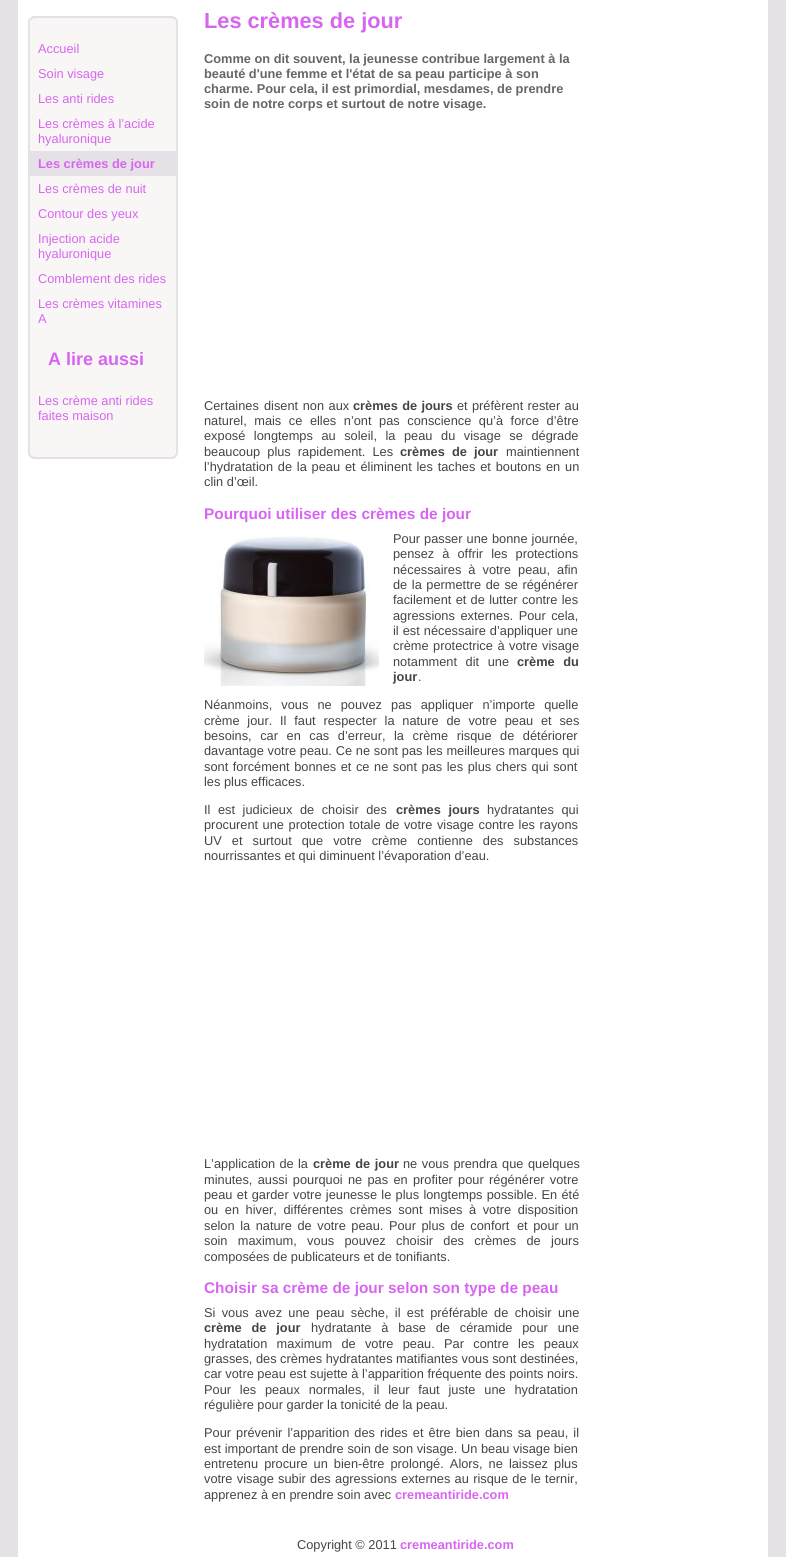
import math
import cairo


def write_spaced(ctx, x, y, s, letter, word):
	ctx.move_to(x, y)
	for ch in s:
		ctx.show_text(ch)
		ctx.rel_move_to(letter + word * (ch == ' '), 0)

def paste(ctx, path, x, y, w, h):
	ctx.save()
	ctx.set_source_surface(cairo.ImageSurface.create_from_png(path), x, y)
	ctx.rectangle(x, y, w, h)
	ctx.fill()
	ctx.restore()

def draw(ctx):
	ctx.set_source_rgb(0.898, 0.882, 0.906)
	ctx.paint()
	ctx.set_source_rgb(1, 1, 1)
	ctx.rectangle(18, 0, 750, 1557)
	ctx.fill()
	paste(ctx, 'media/1.png', 28, 20, 150, 424)
	paste(ctx, 'media/2.png', 28, 16, 150, 4)
	ctx.select_font_face('Liberation Sans')
	ctx.set_font_size(12.8)
	ctx.set_source_rgb(0.847, 0.396, 0.941)
	for x, y, s in [
		(38, 53, 'Accueil'),
		(38, 78, 'Soin visage'),
		(38, 103, 'Les anti rides'),
		(38, 128, 'Les crèmes à l’acide'),
		(38, 143, 'hyaluronique'),
	]:
		ctx.move_to(x, y)
		ctx.show_text(s)
	ctx.set_source_rgb(0.898, 0.882, 0.906)
	ctx.rectangle(30, 151, 146, 25)
	ctx.fill()
	ctx.select_font_face('Liberation Sans', cairo.FONT_SLANT_NORMAL, cairo.FONT_WEIGHT_BOLD)
	ctx.set_source_rgb(0.847, 0.396, 0.941)
	ctx.move_to(38, 168)
	ctx.show_text('Les crèmes de jour')
	ctx.select_font_face('Liberation Sans')
	for x, y, s in [
		(38, 193, 'Les crèmes de nuit'),
		(38, 218, 'Contour des yeux'),
		(38, 243, 'Injection acide'),
		(38, 258, 'hyaluronique'),
		(38, 283, 'Comblement des rides'),
		(38, 308, 'Les crèmes vitamines'),
		(38, 323, 'A'),
	]:
		ctx.move_to(x, y)
		ctx.show_text(s)
	ctx.select_font_face('Liberation Sans', cairo.FONT_SLANT_NORMAL, cairo.FONT_WEIGHT_BOLD)
	ctx.set_font_size(18)
	ctx.move_to(48, 365)
	ctx.show_text('A lire aussi')
	ctx.select_font_face('Liberation Sans')
	ctx.set_font_size(12.8)
	ctx.move_to(38, 405)
	ctx.show_text('Les crème anti rides')
	ctx.move_to(38, 420)
	ctx.show_text('faites maison')
	paste(ctx, 'media/3.png', 28, 444, 150, 15)
	ctx.select_font_face('Liberation Sans', cairo.FONT_SLANT_NORMAL, cairo.FONT_WEIGHT_BOLD)
	ctx.set_font_size(21.75)
	ctx.move_to(204, 28)
	ctx.show_text('Les crèmes de jour')
	ctx.set_font_size(12.8)
	ctx.set_source_rgb(0.4, 0.4, 0.4)
	for x, y, s in [
		(204, 63, 'Comme on dit souvent, la jeunesse contribue largement à la'),
		(204, 78, 'beauté d\'une femme et l\'état de sa peau participe à son'),
		(204, 93, 'charme. Pour cela, il est primordial, mesdames, de prendre'),
		(204, 108, 'soin de notre corps et surtout de notre visage.'),
	]:
		ctx.move_to(x, y)
		ctx.show_text(s)
	ctx.select_font_face('Liberation Sans')
	ctx.set_source_rgb(0.267, 0.267, 0.267)
	ctx.move_to(204, 410)
	ctx.show_text('Certaines')
	write_spaced(ctx, 264, 410, 'disent non aux', 0, 1)
	ctx.select_font_face('Liberation Sans', cairo.FONT_SLANT_NORMAL, cairo.FONT_WEIGHT_BOLD)
	write_spaced(ctx, 353, 410, 'crèmes de jours', 0, 0.75)
	ctx.select_font_face('Liberation Sans')
	write_spaced(ctx, 457, 410, 'et préfèrent rester au', 0, 0.75)
	write_spaced(ctx, 204, 425, 'naturel, mais ce elles n’ont pas conscience qu’à force d’être', 0, 4)
	write_spaced(ctx, 204, 440, 'exposé longtemps au soleil, la peau du visage se dégrade', 0, 5)
	write_spaced(ctx, 204, 456, 'beaucoup plus rapidement. Les', 0, 3.5)
	ctx.select_font_face('Liberation Sans', cairo.FONT_SLANT_NORMAL, cairo.FONT_WEIGHT_BOLD)
	write_spaced(ctx, 400, 456, 'crèmes de jour', 0, 3.5)
	ctx.select_font_face('Liberation Sans')
	ctx.move_to(506, 456)
	ctx.show_text('maintiennent')
	write_spaced(ctx, 204, 471, 'l’hydratation de la peau', 0, 1.25)
	write_spaced(ctx, 345, 471, 'et éliminent les taches et boutons en un', 0, 1.25)
	ctx.move_to(204, 486)
	ctx.show_text('clin d’œil.')
	ctx.select_font_face('Liberation Sans', cairo.FONT_SLANT_NORMAL, cairo.FONT_WEIGHT_BOLD)
	ctx.set_font_size(15.4)
	ctx.set_source_rgb(0.847, 0.396, 0.941)
	ctx.move_to(204, 519)
	ctx.show_text('Pourquoi utiliser des crèmes de jour')
	paste(ctx, 'media/4.png', 204, 536, 175, 150)
	ctx.select_font_face('Liberation Sans')
	ctx.set_font_size(12.8)
	ctx.set_source_rgb(0.267, 0.267, 0.267)
	write_spaced(ctx, 393, 543, 'Pour passer une bonne journée,', 0, 0.5)
	write_spaced(ctx, 393, 558, 'pensez à offrir les protections', 0, 4.5)
	write_spaced(ctx, 393, 574, 'nécessaires à votre peau, afin', 0, 3.5)
	write_spaced(ctx, 393, 589, 'de la permettre de se régénérer', 0, 1)
	write_spaced(ctx, 393, 604, 'facilement et de lutter contre les', 0, 0.75)
	write_spaced(ctx, 393, 620, 'agressions externes. Pour cela,', 0, 2)
	write_spaced(ctx, 393, 635, 'il est nécessaire d’appliquer une', 0, 0.5)
	write_spaced(ctx, 393, 650, 'crème protectrice à votre visage', 0, 1)
	write_spaced(ctx, 393, 666, 'notamment dit une', 0, 5)
	ctx.select_font_face('Liberation Sans', cairo.FONT_SLANT_NORMAL, cairo.FONT_WEIGHT_BOLD)
	write_spaced(ctx, 517, 666, 'crème du', 0, 5)
	ctx.move_to(393, 681)
	ctx.show_text('jour')
	ctx.select_font_face('Liberation Sans')
	ctx.move_to(418, 681)
	ctx.show_text('.')
	write_spaced(ctx, 204, 709, 'Néanmoins, vous ne pouvez pas appliquer n’importe quelle', 0, 5.5)
	write_spaced(ctx, 204, 725, 'crème jour. Il faut respecter la nature de votre peau et ses', 0, 4.25)
	write_spaced(ctx, 204, 740, 'besoins, car en cas d’erreur, la crème risque de détériorer', 0, 5)
	write_spaced(ctx, 204, 755, 'davantage votre peau. Ce ne sont pas les meilleures marques qui', 0, 0.25)
	write_spaced(ctx, 204, 771, 'sont forcément bonnes et ce ne sont pas les plus chers qui sont', 0, 1)
	ctx.move_to(204, 786)
	ctx.show_text('les plus efficaces.')
	write_spaced(ctx, 204, 814, 'Il est judicieux de choisir des', 0, 4)
	ctx.select_font_face('Liberation Sans', cairo.FONT_SLANT_NORMAL, cairo.FONT_WEIGHT_BOLD)
	write_spaced(ctx, 396, 814, 'crèmes jours', 0, 4)
	ctx.select_font_face('Liberation Sans')
	write_spaced(ctx, 487, 814, 'hydratantes qui', 0, 4)
	write_spaced(ctx, 204, 829, 'procurent une protection totale de votre visage contre les rayons', 0, 1)
	write_spaced(ctx, 204, 845, 'UV et surtout que votre crème contienne des substances', 0, 6.5)
	ctx.move_to(204, 860)
	ctx.show_text('nourrissantes et qui diminuent l’évaporation d’eau.')
	write_spaced(ctx, 204, 1168, 'L’application de la', 0, 0.75)
	ctx.select_font_face('Liberation Sans', cairo.FONT_SLANT_NORMAL, cairo.FONT_WEIGHT_BOLD)
	write_spaced(ctx, 313, 1168, 'crème de jour', 0, 1)
	ctx.select_font_face('Liberation Sans')
	write_spaced(ctx, 403, 1168, 'ne vous prendra que quelques', 0, 1)
	write_spaced(ctx, 204, 1184, 'minutes, aussi pourquoi ne pas en profiter pour régénérer votre', 0, 1.75)
	write_spaced(ctx, 204, 1199, 'peau et garder votre jeunesse le plus longtemps possible. En été', 0, 0.75)
	write_spaced(ctx, 204, 1214, 'ou en hiver, différentes crèmes sont mises à votre disposition', 0, 3)
	write_spaced(ctx, 204, 1230, 'selon la nature de votre peau. Pour plus de confort', 0, 2)
	write_spaced(ctx, 517, 1230, 'et pour un', 0, 2)
	write_spaced(ctx, 204, 1245, 'soin maximum, vous pouvez choisir des crèmes de jours', 0, 6.75)
	ctx.move_to(204, 1261)
	ctx.show_text('composées de publicateurs et de tonifiants.')
	ctx.select_font_face('Liberation Sans', cairo.FONT_SLANT_NORMAL, cairo.FONT_WEIGHT_BOLD)
	ctx.set_font_size(15.4)
	ctx.set_source_rgb(0.847, 0.396, 0.941)
	ctx.move_to(204, 1293)
	ctx.show_text('Choisir sa crème de jour selon son type de peau')
	ctx.select_font_face('Liberation Sans')
	ctx.set_font_size(12.8)
	ctx.set_source_rgb(0.267, 0.267, 0.267)
	write_spaced(ctx, 204, 1317, 'Si vous avez une peau sèche, il est préférable de choisir une', 0, 2.75)
	ctx.select_font_face('Liberation Sans', cairo.FONT_SLANT_NORMAL, cairo.FONT_WEIGHT_BOLD)
	write_spaced(ctx, 204, 1332, 'crème de jour', 0, 6.25)
	ctx.select_font_face('Liberation Sans')
	write_spaced(ctx, 311, 1332, 'hydratante à base de céramide pour une', 0, 6.25)
	write_spaced(ctx, 204, 1348, 'hydratation maximum de votre peau. Par contre les peaux', 0, 5.75)
	ctx.move_to(204, 1363)
	ctx.show_text('grasses, des crèmes hydratantes matifiantes vous sont destinées,')
	ctx.move_to(204, 1378)
	ctx.show_text('car votre peau est sujette à l’apparition fréquente des points noirs.')
	write_spaced(ctx, 204, 1394, 'Pour les peaux normales, il leur faut juste une hydratation', 0, 5.25)
	ctx.move_to(204, 1409)
	ctx.show_text('régulière pour garder la tonicité de la peau.')
	write_spaced(ctx, 204, 1437, 'Pour prévenir l’apparition des rides et être bien dans sa peau, il', 0, 1.5)
	write_spaced(ctx, 204, 1453, 'est important de prendre soin de son visage. Un beau visage bien', 0, 0.1)
	write_spaced(ctx, 204, 1468, 'entretenu procure un bien-être prolongé. Alors, ne laissez plus', 0, 2.5)
	write_spaced(ctx, 204, 1483, 'votre visage subir des agressions externes au risque de le ternir,', 0, 0.75)
	ctx.move_to(204, 1499)
	ctx.show_text('apprenez à en prendre soin avec')
	ctx.select_font_face('Liberation Sans', cairo.FONT_SLANT_NORMAL, cairo.FONT_WEIGHT_BOLD)
	ctx.set_source_rgb(0.847, 0.396, 0.941)
	ctx.move_to(395, 1499)
	ctx.show_text('cremeantiride.com')
	ctx.select_font_face('Liberation Sans')
	ctx.set_source_rgb(0.267, 0.267, 0.267)
	ctx.move_to(297, 1549)
	ctx.show_text('Copyright © 2011')
	ctx.select_font_face('Liberation Sans', cairo.FONT_SLANT_NORMAL, cairo.FONT_WEIGHT_BOLD)
	ctx.set_source_rgb(0.847, 0.396, 0.941)
	ctx.move_to(400, 1549)
	ctx.show_text('cremeantiride.com')


surface = cairo.ImageSurface(cairo.FORMAT_RGB24, 786, 1557)
ctx = cairo.Context(surface)
options = cairo.FontOptions()
options.set_hint_metrics(cairo.HINT_METRICS_OFF)
options.set_hint_style(cairo.HINT_STYLE_NONE)
ctx.set_font_options(options)
ctx.set_miter_limit(4)
draw(ctx)
surface.write_to_png('image.png')
